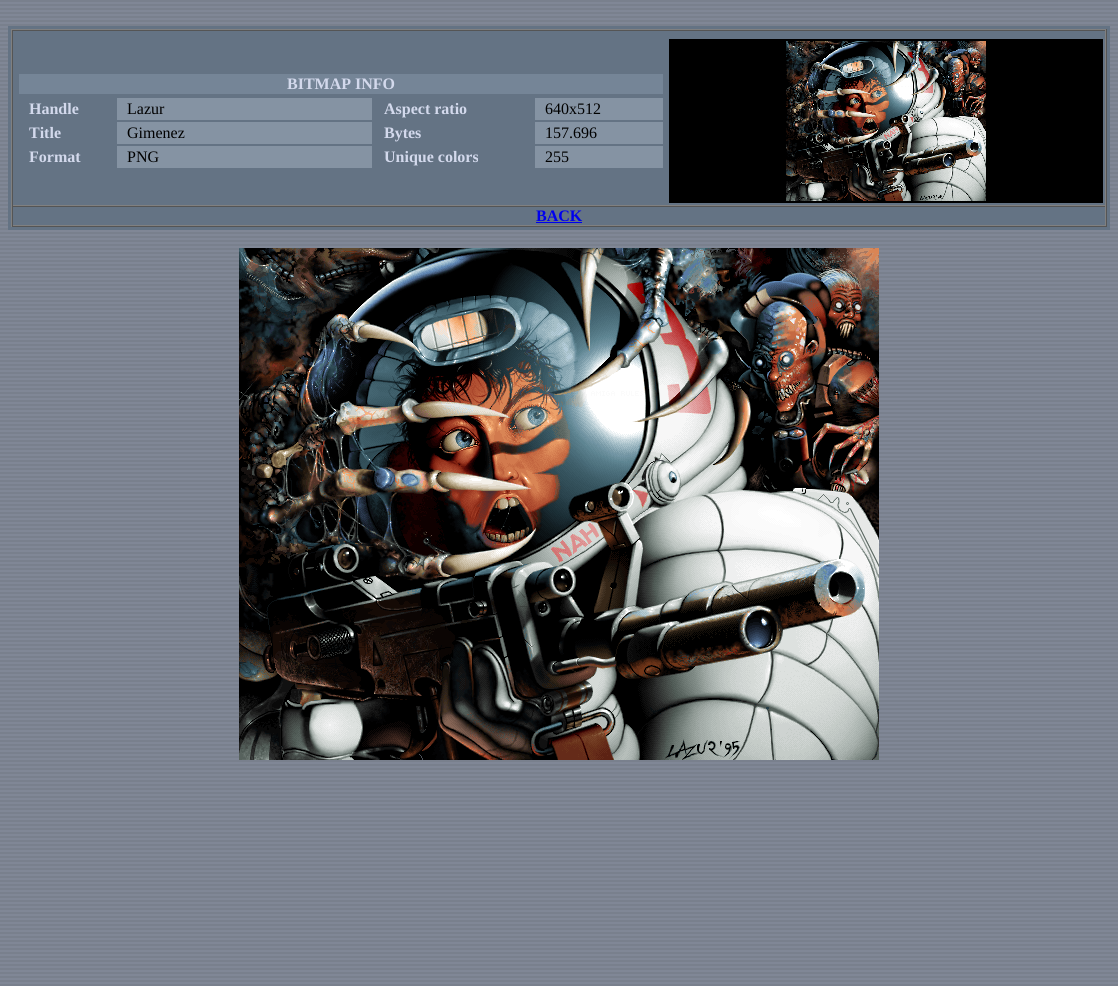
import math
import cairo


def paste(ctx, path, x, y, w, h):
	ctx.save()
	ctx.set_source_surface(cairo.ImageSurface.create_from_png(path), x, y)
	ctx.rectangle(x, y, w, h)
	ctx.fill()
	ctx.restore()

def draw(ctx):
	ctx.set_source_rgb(1, 1, 1)
	ctx.paint()
	paste(ctx, 'media/1.png', 0, 0, 1118, 986)
	ctx.set_source_rgb(0.392, 0.451, 0.518)
	ctx.rectangle(8, 26, 1102, 204)
	ctx.fill()
	ctx.set_source_rgb(0.502, 0.502, 0.502)
	ctx.rectangle(11, 29, 1096, 1)
	ctx.fill()
	ctx.set_source_rgb(0.333, 0.333, 0.333)
	ctx.rectangle(1106, 29, 1, 198)
	ctx.rectangle(11, 226, 1096, 1)
	ctx.fill()
	ctx.set_source_rgb(0.502, 0.502, 0.502)
	ctx.rectangle(11, 29, 1, 198)
	ctx.fill()
	ctx.set_source_rgb(0.333, 0.333, 0.333)
	ctx.rectangle(12, 30, 1094, 1)
	ctx.fill()
	ctx.set_source_rgb(0.502, 0.502, 0.502)
	ctx.rectangle(1105, 30, 1, 176)
	ctx.rectangle(12, 205, 1094, 1)
	ctx.fill()
	ctx.set_source_rgb(0.333, 0.333, 0.333)
	ctx.rectangle(12, 30, 1, 176)
	ctx.fill()
	ctx.set_source_rgb(0.459, 0.522, 0.592)
	ctx.rectangle(19, 74, 644, 20)
	ctx.fill()
	ctx.select_font_face('Liberation Serif', cairo.FONT_SLANT_NORMAL, cairo.FONT_WEIGHT_BOLD)
	ctx.set_font_size(16)
	ctx.set_source_rgb(0.827, 0.851, 0.922)
	ctx.move_to(287, 89)
	ctx.show_text('BITMAP INFO')
	ctx.move_to(29, 114)
	ctx.show_text('Handle')
	ctx.set_source_rgb(0.522, 0.576, 0.639)
	ctx.rectangle(117, 98, 255, 22)
	ctx.fill()
	ctx.select_font_face('Liberation Serif')
	ctx.set_source_rgb(0, 0, 0)
	ctx.move_to(127, 114)
	ctx.show_text('Lazur')
	ctx.select_font_face('Liberation Serif', cairo.FONT_SLANT_NORMAL, cairo.FONT_WEIGHT_BOLD)
	ctx.set_source_rgb(0.827, 0.851, 0.922)
	ctx.move_to(384, 114)
	ctx.show_text('Aspect ratio')
	ctx.set_source_rgb(0.522, 0.576, 0.639)
	ctx.rectangle(535, 98, 128, 22)
	ctx.fill()
	ctx.select_font_face('Liberation Serif')
	ctx.set_source_rgb(0, 0, 0)
	ctx.move_to(545, 114)
	ctx.show_text('640x512')
	ctx.select_font_face('Liberation Serif', cairo.FONT_SLANT_NORMAL, cairo.FONT_WEIGHT_BOLD)
	ctx.set_source_rgb(0.827, 0.851, 0.922)
	ctx.move_to(29, 138)
	ctx.show_text('Title')
	ctx.set_source_rgb(0.522, 0.576, 0.639)
	ctx.rectangle(117, 122, 255, 22)
	ctx.fill()
	ctx.select_font_face('Liberation Serif')
	ctx.set_source_rgb(0, 0, 0)
	ctx.move_to(127, 138)
	ctx.show_text('Gimenez')
	ctx.select_font_face('Liberation Serif', cairo.FONT_SLANT_NORMAL, cairo.FONT_WEIGHT_BOLD)
	ctx.set_source_rgb(0.827, 0.851, 0.922)
	ctx.move_to(384, 138)
	ctx.show_text('Bytes')
	ctx.set_source_rgb(0.522, 0.576, 0.639)
	ctx.rectangle(535, 122, 128, 22)
	ctx.fill()
	ctx.select_font_face('Liberation Serif')
	ctx.set_source_rgb(0, 0, 0)
	ctx.move_to(545, 138)
	ctx.show_text('157.696')
	ctx.select_font_face('Liberation Serif', cairo.FONT_SLANT_NORMAL, cairo.FONT_WEIGHT_BOLD)
	ctx.set_source_rgb(0.827, 0.851, 0.922)
	ctx.move_to(29, 162)
	ctx.show_text('Format')
	ctx.set_source_rgb(0.522, 0.576, 0.639)
	ctx.rectangle(117, 146, 255, 22)
	ctx.fill()
	ctx.select_font_face('Liberation Serif')
	ctx.set_source_rgb(0, 0, 0)
	ctx.move_to(127, 162)
	ctx.show_text('PNG')
	ctx.select_font_face('Liberation Serif', cairo.FONT_SLANT_NORMAL, cairo.FONT_WEIGHT_BOLD)
	ctx.set_source_rgb(0.827, 0.851, 0.922)
	ctx.move_to(384, 162)
	ctx.show_text('Unique colors')
	ctx.set_source_rgb(0.522, 0.576, 0.639)
	ctx.rectangle(535, 146, 128, 22)
	ctx.fill()
	ctx.select_font_face('Liberation Serif')
	ctx.set_source_rgb(0, 0, 0)
	ctx.move_to(545, 162)
	ctx.show_text('255')
	ctx.rectangle(669, 39, 434, 164)
	ctx.fill()
	paste(ctx, 'media/2.png', 786, 41, 200, 160)
	ctx.set_source_rgb(0.333, 0.333, 0.333)
	ctx.rectangle(12, 206, 1094, 1)
	ctx.fill()
	ctx.set_source_rgb(0.502, 0.502, 0.502)
	ctx.rectangle(1105, 206, 1, 20)
	ctx.rectangle(12, 225, 1094, 1)
	ctx.fill()
	ctx.set_source_rgb(0.333, 0.333, 0.333)
	ctx.rectangle(12, 206, 1, 20)
	ctx.fill()
	ctx.select_font_face('Liberation Serif', cairo.FONT_SLANT_NORMAL, cairo.FONT_WEIGHT_BOLD)
	ctx.set_source_rgb(0, 0, 0.933)
	ctx.move_to(536, 221)
	ctx.show_text('BACK')
	ctx.rectangle(536, 222, 46, 1)
	ctx.fill()
	paste(ctx, 'media/3.png', 239, 248, 640, 512)


surface = cairo.ImageSurface(cairo.FORMAT_RGB24, 1118, 986)
ctx = cairo.Context(surface)
options = cairo.FontOptions()
options.set_hint_metrics(cairo.HINT_METRICS_OFF)
options.set_hint_style(cairo.HINT_STYLE_NONE)
ctx.set_font_options(options)
ctx.set_miter_limit(4)
draw(ctx)
surface.write_to_png('image.png')
